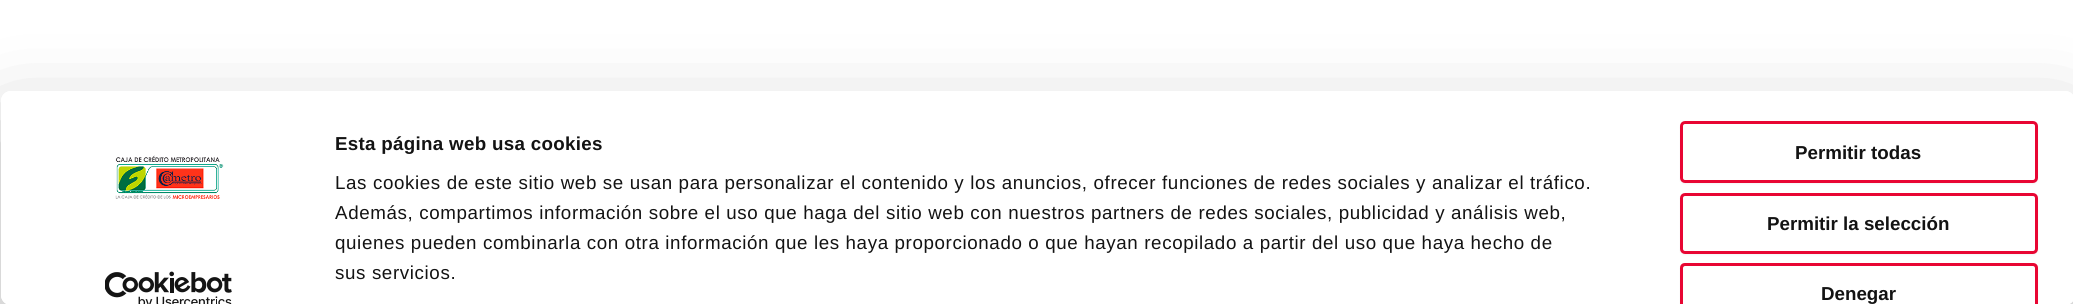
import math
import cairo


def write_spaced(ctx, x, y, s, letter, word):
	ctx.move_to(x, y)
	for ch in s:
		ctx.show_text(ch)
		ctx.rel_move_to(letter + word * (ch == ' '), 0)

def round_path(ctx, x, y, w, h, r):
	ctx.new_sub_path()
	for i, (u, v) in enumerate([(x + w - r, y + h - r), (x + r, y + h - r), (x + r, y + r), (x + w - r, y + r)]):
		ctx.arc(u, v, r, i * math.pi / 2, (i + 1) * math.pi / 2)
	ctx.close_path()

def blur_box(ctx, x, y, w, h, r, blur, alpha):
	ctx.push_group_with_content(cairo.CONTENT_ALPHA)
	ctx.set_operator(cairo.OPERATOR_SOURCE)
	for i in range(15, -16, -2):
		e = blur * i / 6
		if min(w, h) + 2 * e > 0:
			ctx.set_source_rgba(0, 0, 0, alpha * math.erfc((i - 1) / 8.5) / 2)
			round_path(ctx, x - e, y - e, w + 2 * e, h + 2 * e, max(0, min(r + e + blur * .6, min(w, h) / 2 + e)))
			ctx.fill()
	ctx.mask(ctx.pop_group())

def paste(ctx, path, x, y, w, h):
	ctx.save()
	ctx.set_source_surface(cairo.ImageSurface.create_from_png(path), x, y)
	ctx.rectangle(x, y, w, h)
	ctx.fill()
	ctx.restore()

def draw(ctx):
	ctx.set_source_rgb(1, 1, 1)
	ctx.paint()
	ctx.save()
	ctx.set_fill_rule(cairo.FILL_RULE_EVEN_ODD)
	ctx.new_path()
	ctx.move_to(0, 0)
	ctx.line_to(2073, 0)
	ctx.line_to(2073, 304)
	ctx.line_to(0, 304)
	ctx.close_path()
	ctx.move_to(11, 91)
	ctx.line_to(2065, 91)
	ctx.curve_to(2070.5, 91, 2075, 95.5, 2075, 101)
	ctx.line_to(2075, 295)
	ctx.curve_to(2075, 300.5, 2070.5, 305, 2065, 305)
	ctx.line_to(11, 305)
	ctx.curve_to(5.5, 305, 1, 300.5, 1, 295)
	ctx.line_to(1, 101)
	ctx.curve_to(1, 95.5, 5.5, 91, 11, 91)
	ctx.close_path()
	ctx.clip()
	ctx.set_source_rgb(0, 0, 0)
	blur_box(ctx, 1, 129, 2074, 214, 10, 44, 0.3)
	ctx.restore()
	ctx.set_source_rgb(1, 1, 1)
	round_path(ctx, 1, 91, 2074, 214, 10)
	ctx.fill()
	paste(ctx, 'media/1.png', 115, 155, 109, 44)
	paste(ctx, 'media/2.png', 105, 271, 127, 33)
	ctx.select_font_face('Liberation Sans', cairo.FONT_SLANT_NORMAL, cairo.FONT_WEIGHT_BOLD)
	ctx.set_font_size(18.75)
	ctx.set_source_rgb(0.078, 0.078, 0.078)
	write_spaced(ctx, 335, 150, 'Esta página web usa cookies', 0.3, 0)
	ctx.select_font_face('Liberation Sans')
	for x, y, s in [
		(335, 189, 'Las cookies de este sitio web se usan para personalizar el contenido y los anuncios, ofrecer funciones de redes sociales y analizar el tráfico.'),
		(335, 219, 'Además, compartimos información sobre el uso que haga del sitio web con nuestros partners de redes sociales, publicidad y análisis web,'),
		(335, 249, 'quienes pueden combinarla con otra información que les haya proporcionado o que hayan recopilado a partir del uso que haya hecho de'),
		(335, 279, 'sus servicios.'),
	]:
		write_spaced(ctx, x, y, s, 0.62, 0)
	ctx.set_source_rgb(0, 0, 0)
	blur_box(ctx, 1680, 123, 358, 61, 5, 1, 0.05)
	ctx.set_source_rgb(1, 1, 1)
	round_path(ctx, 1681.5, 122.5, 355, 59, 3.5)
	ctx.fill_preserve()
	ctx.set_source_rgb(0.91, 0.024, 0.2)
	ctx.set_line_width(3)
	ctx.stroke()
	ctx.select_font_face('Liberation Sans', cairo.FONT_SLANT_NORMAL, cairo.FONT_WEIGHT_BOLD)
	ctx.set_source_rgb(0.078, 0.078, 0.078)
	ctx.move_to(1795, 159)
	ctx.show_text('Permitir todas')
	ctx.set_source_rgb(0, 0, 0)
	blur_box(ctx, 1680, 194, 358, 61, 5, 1, 0.05)
	ctx.set_source_rgb(1, 1, 1)
	round_path(ctx, 1681.5, 194.5, 355, 58, 3.5)
	ctx.fill_preserve()
	ctx.set_source_rgb(0.91, 0.024, 0.2)
	ctx.stroke()
	ctx.set_source_rgb(0.078, 0.078, 0.078)
	ctx.move_to(1767, 230)
	ctx.show_text('Permitir la selección')
	ctx.set_source_rgb(0, 0, 0)
	blur_box(ctx, 1680, 264, 358, 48, 5, 1, 0.05)
	ctx.set_source_rgb(1, 1, 1)
	ctx.new_path()
	ctx.move_to(1685, 263)
	ctx.line_to(2033, 263)
	ctx.curve_to(2036, 263, 2038, 265, 2038, 268)
	ctx.line_to(2038, 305)
	ctx.line_to(1680, 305)
	ctx.line_to(1680, 268)
	ctx.curve_to(1680, 265, 1682, 263, 1685, 263)
	ctx.close_path()
	ctx.fill()
	ctx.set_source_rgb(0.91, 0.024, 0.2)
	ctx.new_path()
	ctx.move_to(1685, 263)
	ctx.curve_to(1682, 263, 1680, 265, 1680, 268)
	ctx.line_to(1680, 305)
	ctx.line_to(1683, 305)
	ctx.line_to(1683, 268)
	ctx.curve_to(1683, 267, 1684, 266, 1685, 266)
	ctx.line_to(2033, 266)
	ctx.curve_to(2034, 266, 2035, 267, 2035, 268)
	ctx.line_to(2035, 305)
	ctx.line_to(2038, 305)
	ctx.line_to(2038, 268)
	ctx.curve_to(2038, 265, 2036, 263, 2033, 263)
	ctx.close_path()
	ctx.fill()
	ctx.set_source_rgb(0.078, 0.078, 0.078)
	ctx.move_to(1821, 300)
	ctx.show_text('Denegar')


surface = cairo.ImageSurface(cairo.FORMAT_RGB24, 2073, 304)
ctx = cairo.Context(surface)
options = cairo.FontOptions()
options.set_hint_metrics(cairo.HINT_METRICS_OFF)
options.set_hint_style(cairo.HINT_STYLE_NONE)
ctx.set_font_options(options)
ctx.set_miter_limit(4)
draw(ctx)
surface.write_to_png('image.png')
